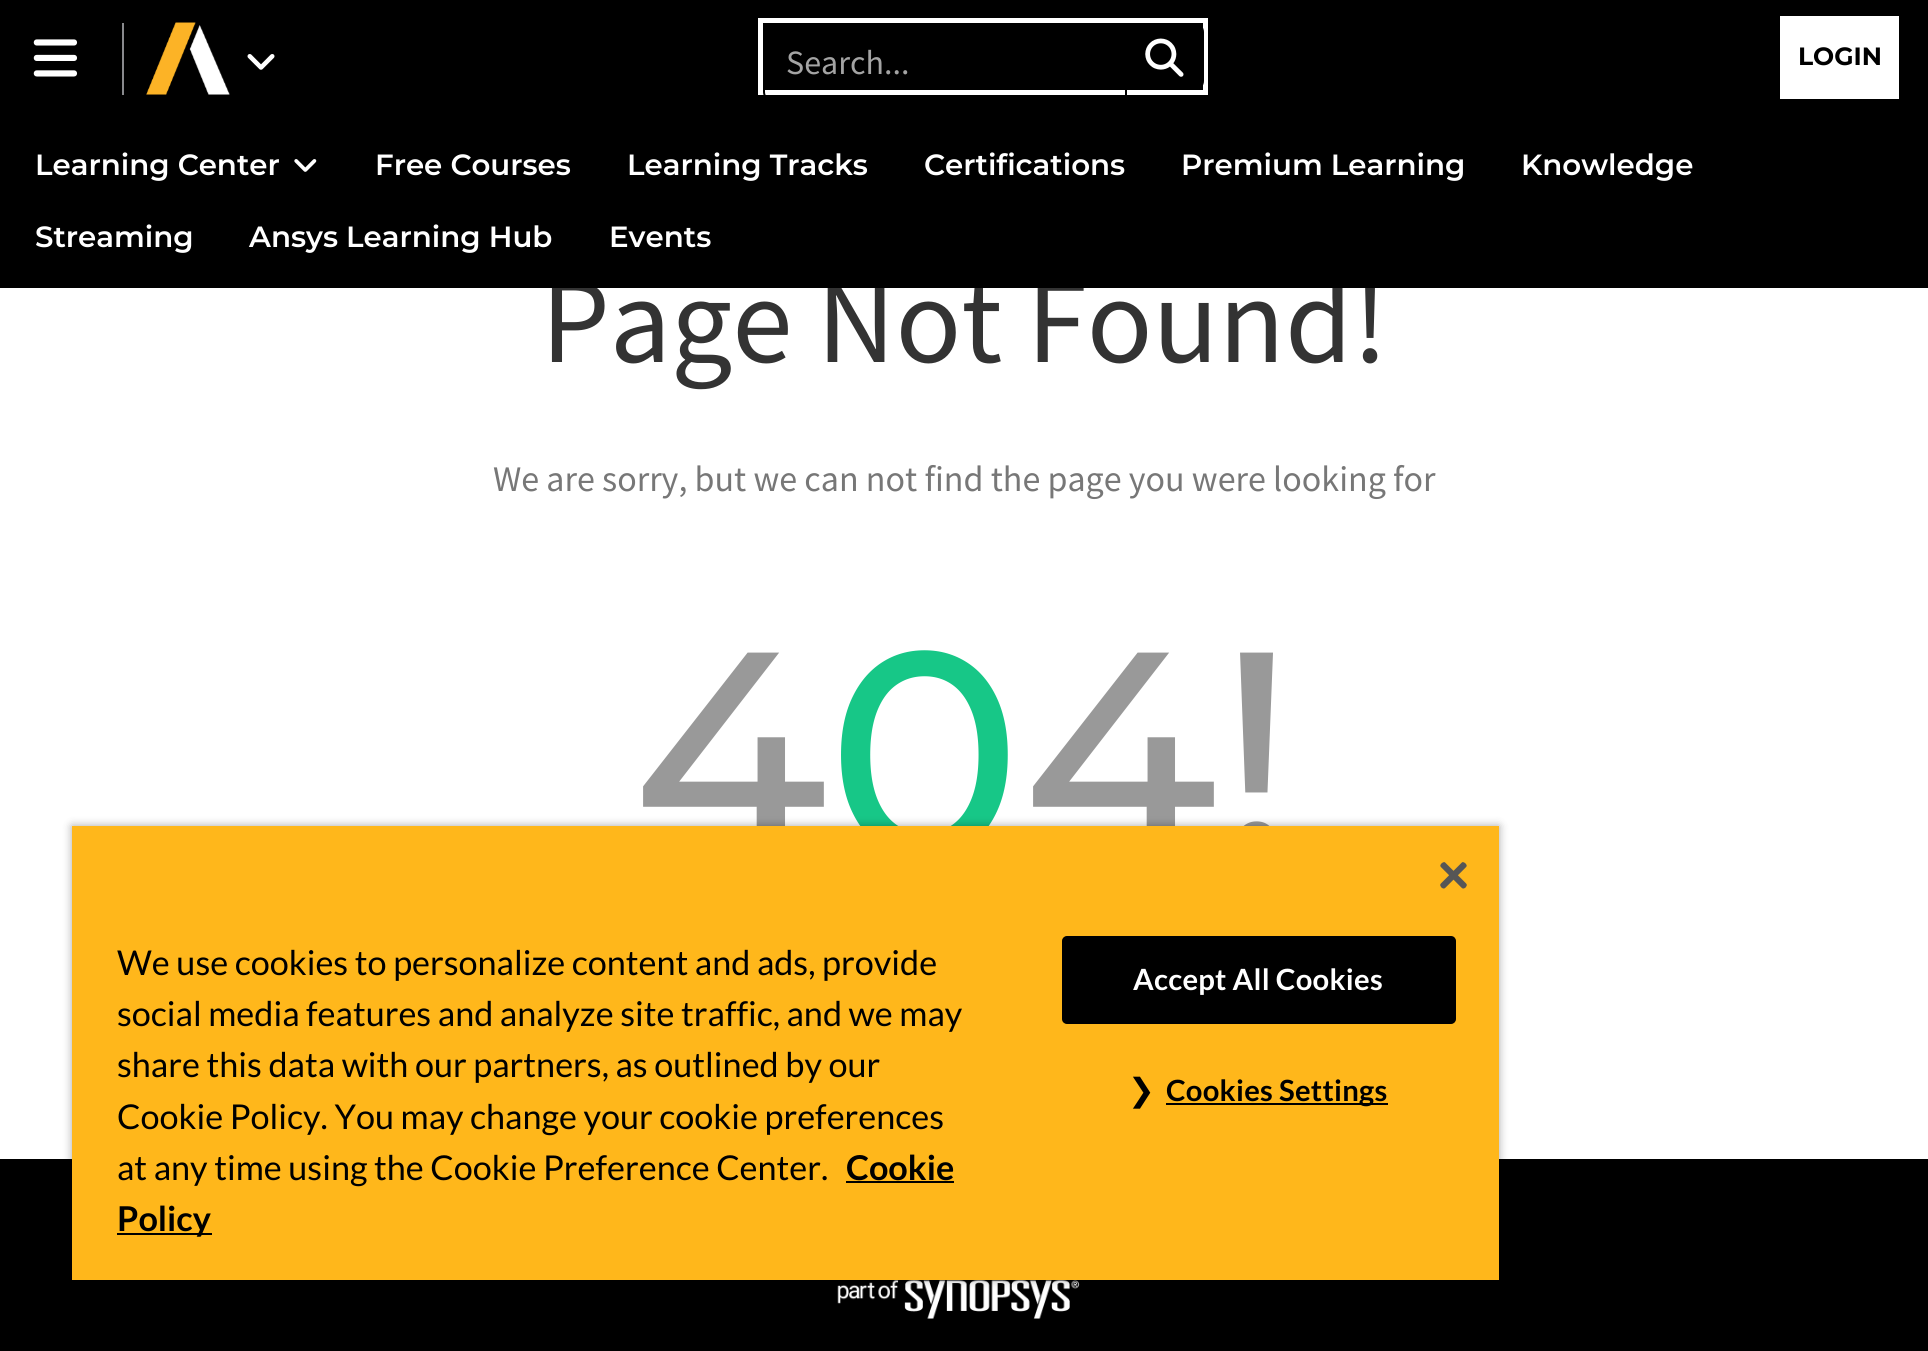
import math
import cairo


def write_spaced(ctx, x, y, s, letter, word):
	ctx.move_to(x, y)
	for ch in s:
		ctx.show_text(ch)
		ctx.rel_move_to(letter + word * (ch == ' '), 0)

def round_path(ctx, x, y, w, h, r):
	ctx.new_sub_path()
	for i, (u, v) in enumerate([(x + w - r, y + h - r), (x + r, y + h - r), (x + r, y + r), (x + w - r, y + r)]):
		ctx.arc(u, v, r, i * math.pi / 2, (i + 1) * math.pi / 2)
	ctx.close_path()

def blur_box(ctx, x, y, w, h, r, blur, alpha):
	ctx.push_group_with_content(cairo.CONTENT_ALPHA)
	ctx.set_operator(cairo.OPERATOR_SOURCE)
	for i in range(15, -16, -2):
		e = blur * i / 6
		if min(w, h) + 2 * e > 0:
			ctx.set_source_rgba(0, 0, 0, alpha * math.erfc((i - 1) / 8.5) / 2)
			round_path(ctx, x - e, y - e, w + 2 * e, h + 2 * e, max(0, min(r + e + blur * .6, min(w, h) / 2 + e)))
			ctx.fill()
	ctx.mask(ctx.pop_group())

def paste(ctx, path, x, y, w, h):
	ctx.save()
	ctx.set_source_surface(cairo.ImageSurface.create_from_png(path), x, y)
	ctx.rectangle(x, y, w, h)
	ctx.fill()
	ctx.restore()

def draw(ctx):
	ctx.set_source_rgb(1, 1, 1)
	ctx.paint()
	ctx.select_font_face('Source Sans Pro')
	ctx.set_font_size(121.5)
	ctx.set_source_rgb(0.2, 0.2, 0.2)
	ctx.move_to(541, 362)
	ctx.show_text('Page Not Found!')
	ctx.set_source_rgb(0, 0, 0)
	ctx.rectangle(0, 0, 1928, 288)
	ctx.fill()
	paste(ctx, 'media/1.png', 33, 39, 45, 38)
	ctx.set_source_rgb(0.537, 0.541, 0.553)
	ctx.rectangle(122, 23, 2, 72)
	ctx.fill()
	paste(ctx, 'media/2.png', 146, 22, 84, 73)
	paste(ctx, 'media/3.png', 247, 54, 28, 16)
	ctx.rectangle(760.5, 20.5, 445, 72)
	ctx.set_source_rgb(1, 1, 1)
	ctx.set_line_width(5)
	ctx.stroke()
	ctx.new_path()
	ctx.move_to(772, 24)
	ctx.line_to(1126, 24)
	ctx.line_to(1126, 100)
	ctx.line_to(772, 100)
	ctx.curve_to(767.5, 100, 764, 96.5, 764, 92)
	ctx.line_to(764, 32)
	ctx.curve_to(764, 27.5, 767.5, 24, 772, 24)
	ctx.close_path()
	ctx.set_source_rgb(0, 0, 0)
	ctx.set_line_width(2)
	ctx.stroke()
	ctx.set_font_size(34)
	ctx.set_source_rgb(0.643, 0.643, 0.643)
	ctx.move_to(786, 74)
	ctx.show_text('Search...')
	ctx.new_path()
	ctx.move_to(1126, 24)
	ctx.line_to(1195, 24)
	ctx.curve_to(1199.5, 24, 1203, 27.5, 1203, 32)
	ctx.line_to(1203, 81)
	ctx.curve_to(1203, 85.5, 1199.5, 89, 1195, 89)
	ctx.line_to(1126, 89)
	ctx.close_path()
	ctx.set_source_rgb(0, 0, 0)
	ctx.stroke()
	paste(ctx, 'media/4.png', 1145, 38, 39, 39)
	ctx.set_source_rgb(1, 1, 1)
	ctx.rectangle(1780, 16, 119, 83)
	ctx.fill()
	ctx.select_font_face('Montserrat', cairo.FONT_SLANT_NORMAL, cairo.FONT_WEIGHT_BOLD)
	ctx.set_font_size(25)
	ctx.set_source_rgb(0, 0, 0)
	ctx.move_to(1798, 65)
	ctx.show_text('LOGIN')
	ctx.select_font_face('Montserrat SemiBold')
	ctx.set_font_size(29.25)
	ctx.set_source_rgb(1, 1, 1)
	ctx.move_to(35, 175)
	ctx.show_text('Learning Center')
	paste(ctx, 'media/5.png', 294, 159, 23, 13)
	for x, y, s in [
		(375, 175, 'Free Courses'),
		(627, 175, 'Learning Tracks'),
		(924, 175, 'Certifications'),
		(1181, 175, 'Premium Learning'),
		(1521, 175, 'Knowledge'),
		(35, 247, 'Streaming'),
		(249, 247, 'Ansys Learning Hub'),
		(609, 247, 'Events'),
	]:
		ctx.move_to(x, y)
		ctx.show_text(s)
	ctx.select_font_face('Source Sans Pro')
	ctx.set_font_size(36)
	ctx.set_source_rgb(0.467, 0.467, 0.467)
	ctx.move_to(493, 491)
	ctx.show_text('We are sorry, but we can not find the page you were looking for')
	ctx.select_font_face('Montserrat Medium')
	ctx.set_font_size(292)
	ctx.set_source_rgb(0.6, 0.6, 0.6)
	ctx.move_to(632, 857)
	ctx.show_text('4')
	ctx.set_source_rgb(0.09, 0.78, 0.529)
	ctx.move_to(827, 857)
	ctx.show_text('0')
	ctx.set_source_rgb(0.6, 0.6, 0.6)
	ctx.move_to(1022, 857)
	ctx.show_text('4!')
	ctx.set_source_rgb(0, 0, 0)
	ctx.rectangle(0, 1159, 1928, 192)
	ctx.fill()
	paste(ctx, 'media/6.png', 837, 1280, 243, 39)
	ctx.set_source_rgb(0, 0, 0)
	blur_box(ctx, 72, 826, 1427, 454, 0, 4.5, 0.35)
	ctx.set_source_rgb(1, 0.718, 0.106)
	ctx.rectangle(72, 826, 1427, 454)
	ctx.fill()
	paste(ctx, 'media/7.png', 1440, 862, 27, 27)
	ctx.select_font_face('Lato')
	ctx.set_font_size(34.2)
	ctx.set_source_rgb(0, 0, 0)
	for x, y, s in [
		(117, 975, 'We use cookies to personalize content and ads, provide'),
		(117, 1026, 'social media features and analyze site traffic, and we may'),
		(117, 1077, 'share this data with our partners, as outlined by our'),
		(117, 1129, 'Cookie Policy. You may change your cookie preferences'),
		(117, 1180, 'at any time using the Cookie Preference Center.'),
	]:
		ctx.move_to(x, y)
		ctx.show_text(s)
	ctx.select_font_face('Lato', cairo.FONT_SLANT_NORMAL, cairo.FONT_WEIGHT_BOLD)
	ctx.move_to(846, 1180)
	ctx.show_text('Cookie')
	ctx.rectangle(846, 1181, 108, 2)
	ctx.fill()
	ctx.rectangle(117, 1233, 95, 2)
	ctx.fill()
	ctx.move_to(117, 1231)
	ctx.show_text('Policy')
	round_path(ctx, 1063, 937, 392, 86, 4)
	ctx.fill_preserve()
	ctx.stroke()
	ctx.set_font_size(29.25)
	ctx.set_source_rgb(1, 1, 1)
	write_spaced(ctx, 1133, 990, 'Accept All Cookies', 0.25, 0)
	ctx.select_font_face('DejaVu Sans')
	ctx.set_font_size(32)
	ctx.set_source_rgb(0, 0, 0)
	write_spaced(ctx, 1128, 1101, '❯', 0.25, 0)
	ctx.rectangle(1166, 1103, 222, 2)
	ctx.fill()
	ctx.select_font_face('Lato', cairo.FONT_SLANT_NORMAL, cairo.FONT_WEIGHT_BOLD)
	ctx.set_font_size(29.25)
	write_spaced(ctx, 1166, 1101, 'Cookies Settings', 0.25, 0)


surface = cairo.ImageSurface(cairo.FORMAT_RGB24, 1928, 1351)
ctx = cairo.Context(surface)
options = cairo.FontOptions()
options.set_hint_metrics(cairo.HINT_METRICS_OFF)
options.set_hint_style(cairo.HINT_STYLE_NONE)
ctx.set_font_options(options)
ctx.set_miter_limit(4)
draw(ctx)
surface.write_to_png('image.png')
